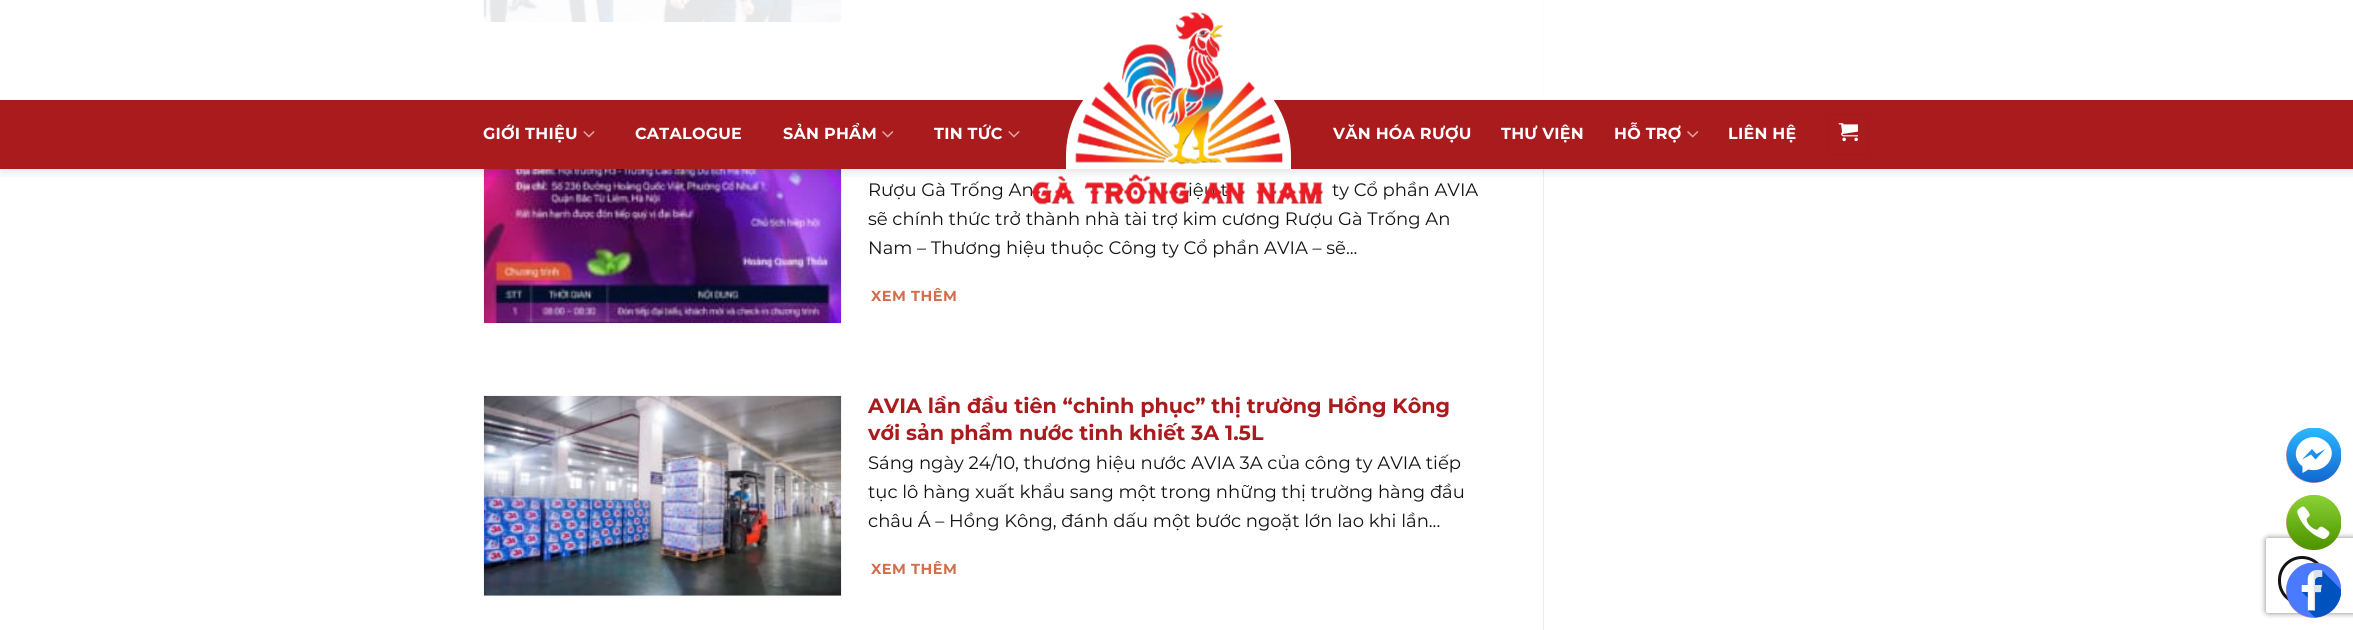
import math
import cairo


def write_spaced(ctx, x, y, s, letter, word):
	ctx.move_to(x, y)
	for ch in s:
		ctx.show_text(ch)
		ctx.rel_move_to(letter + word * (ch == ' '), 0)

def round_path(ctx, x, y, w, h, r):
	ctx.new_sub_path()
	for i, (u, v) in enumerate([(x + w - r, y + h - r), (x + r, y + h - r), (x + r, y + r), (x + w - r, y + r)]):
		ctx.arc(u, v, r, i * math.pi / 2, (i + 1) * math.pi / 2)
	ctx.close_path()

def blur_box(ctx, x, y, w, h, r, blur, alpha):
	ctx.push_group_with_content(cairo.CONTENT_ALPHA)
	ctx.set_operator(cairo.OPERATOR_SOURCE)
	for i in range(15, -16, -2):
		e = blur * i / 6
		if min(w, h) + 2 * e > 0:
			ctx.set_source_rgba(0, 0, 0, alpha * math.erfc((i - 1) / 8.5) / 2)
			round_path(ctx, x - e, y - e, w + 2 * e, h + 2 * e, max(0, min(r + e + blur * .6, min(w, h) / 2 + e)))
			ctx.fill()
	ctx.mask(ctx.pop_group())

def paste(ctx, path, x, y, w, h):
	ctx.save()
	ctx.set_source_surface(cairo.ImageSurface.create_from_png(path), x, y)
	ctx.rectangle(x, y, w, h)
	ctx.fill()
	ctx.restore()

def draw(ctx):
	ctx.set_source_rgb(1, 1, 1)
	ctx.paint()
	paste(ctx, 'media/5.png', 483, 0, 359, 22)
	paste(ctx, 'media/6.png', 483, 169, 359, 155)
	ctx.set_source_rgb(0.925, 0.925, 0.925)
	ctx.rectangle(1543, 0, 1, 630)
	ctx.fill()
	ctx.save()
	ctx.rectangle(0, 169, 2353, 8)
	ctx.clip()
	ctx.set_source_rgb(0, 0, 0)
	blur_box(ctx, 1, 1, 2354, 169, 0, 6, 0.15)
	ctx.restore()
	ctx.set_source_rgba(1, 1, 1, 0.9)
	ctx.rectangle(483, 0, 1061, 100)
	ctx.fill()
	ctx.set_source_rgb(0.667, 0.106, 0.118)
	ctx.rectangle(0, 100, 2353, 69)
	ctx.fill()
	ctx.set_source_rgb(1, 1, 1)
	ctx.new_path()
	ctx.move_to(1166, 56)
	ctx.line_to(1191, 56)
	ctx.curve_to(1246, 56, 1291, 101, 1291, 156)
	ctx.line_to(1291, 169)
	ctx.line_to(1066, 169)
	ctx.line_to(1066, 156)
	ctx.curve_to(1066, 101, 1111, 56, 1166, 56)
	ctx.close_path()
	ctx.fill()
	ctx.select_font_face('Montserrat')
	ctx.set_font_size(18)
	ctx.set_source_rgb(0.078, 0.078, 0.078)
	ctx.move_to(868, 196)
	ctx.show_text('Rượu Gà Trống An')
	ctx.move_to(1188, 196)
	ctx.show_text('iệu t')
	paste(ctx, 'media/1.png', 1031, 12, 293, 193)
	ctx.select_font_face('Montserrat', cairo.FONT_SLANT_NORMAL, cairo.FONT_WEIGHT_BOLD)
	ctx.set_font_size(16)
	ctx.set_source_rgb(1, 1, 1)
	write_spaced(ctx, 483, 139, 'GIỚI THIỆU', 0.25, 0)
	paste(ctx, 'media/2.png', 583, 131, 12, 7)
	write_spaced(ctx, 635, 139, 'CATALOGUE', 0.25, 0)
	write_spaced(ctx, 783, 139, 'SẢN PHẨM', 0.25, 0)
	paste(ctx, 'media/3.png', 882, 131, 12, 7)
	write_spaced(ctx, 934, 139, 'TIN TỨC', 0.25, 0)
	paste(ctx, 'media/2.png', 1008, 131, 12, 7)
	for x, y, s in [
		(1333, 139, 'VĂN HÓA RƯỢU'),
		(1501, 139, 'THƯ VIỆN'),
		(1614, 139, 'HỖ TRỢ'),
	]:
		write_spaced(ctx, x, y, s, 0.25, 0)
	paste(ctx, 'media/3.png', 1687, 131, 12, 7)
	write_spaced(ctx, 1728, 139, 'LIÊN HỆ', 0.25, 0)
	round_path(ctx, 1828.5, 114.5, 40, 40, 5.5)
	ctx.set_source_rgb(0.635, 0.102, 0.114)
	ctx.set_line_width(1)
	ctx.stroke()
	paste(ctx, 'media/4.png', 1838, 123, 20, 19)
	ctx.select_font_face('Montserrat')
	ctx.set_font_size(18)
	ctx.set_source_rgb(0.078, 0.078, 0.078)
	for x, y, s in [
		(1332, 196, 'ty Cổ phần AVIA'),
		(868, 225, 'sẽ chính thức trở thành nhà tài trợ kim cương Rượu Gà Trống An'),
		(868, 254, 'Nam – Thương hiệu thuộc Công ty Cổ phần AVIA – sẽ...'),
	]:
		ctx.move_to(x, y)
		ctx.show_text(s)
	ctx.select_font_face('Montserrat', cairo.FONT_SLANT_NORMAL, cairo.FONT_WEIGHT_BOLD)
	ctx.set_font_size(14.5)
	ctx.set_source_rgb(0.824, 0.431, 0.294)
	write_spaced(ctx, 871, 301, 'XEM THÊM', 0.5, 0)
	paste(ctx, 'media/7.png', 483, 395, 359, 201)
	ctx.set_font_size(20.7)
	ctx.set_source_rgb(0.667, 0.106, 0.118)
	ctx.move_to(868, 413)
	ctx.show_text('AVIA lần đầu tiên “chinh phục” thị trường Hồng Kông')
	ctx.move_to(868, 440)
	ctx.show_text('với sản phẩm nước tinh khiết 3A 1.5L')
	ctx.select_font_face('Montserrat')
	ctx.set_font_size(18)
	ctx.set_source_rgb(0.078, 0.078, 0.078)
	for x, y, s in [
		(868, 469, 'Sáng ngày 24/10, thương hiệu nước AVIA 3A của công ty AVIA tiếp'),
		(868, 498, 'tục lô hàng xuất khẩu sang một trong những thị trường hàng đầu'),
		(868, 527, 'châu Á – Hồng Kông, đánh dấu một bước ngoặt lớn lao khi lần...'),
	]:
		ctx.move_to(x, y)
		ctx.show_text(s)
	ctx.select_font_face('Montserrat', cairo.FONT_SLANT_NORMAL, cairo.FONT_WEIGHT_BOLD)
	ctx.set_font_size(14.5)
	ctx.set_source_rgb(0.824, 0.431, 0.294)
	write_spaced(ctx, 871, 574, 'XEM THÊM', 0.5, 0)
	ctx.save()
	ctx.set_fill_rule(cairo.FILL_RULE_EVEN_ODD)
	ctx.new_path()
	ctx.move_to(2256, 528)
	ctx.line_to(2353, 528)
	ctx.line_to(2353, 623)
	ctx.line_to(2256, 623)
	ctx.close_path()
	ctx.move_to(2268.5, 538)
	ctx.line_to(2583.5, 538)
	ctx.curve_to(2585, 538, 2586, 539, 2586, 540.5)
	ctx.line_to(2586, 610.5)
	ctx.curve_to(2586, 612, 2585, 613, 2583.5, 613)
	ctx.line_to(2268.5, 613)
	ctx.curve_to(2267, 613, 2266, 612, 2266, 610.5)
	ctx.line_to(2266, 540.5)
	ctx.curve_to(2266, 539, 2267, 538, 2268.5, 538)
	ctx.close_path()
	ctx.clip()
	ctx.set_source_rgb(0.502, 0.502, 0.502)
	blur_box(ctx, 2266, 538, 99, 75, 2.5, 3, 1)
	ctx.restore()
	round_path(ctx, 2279.5, 557.5, 45, 46, 22.5)
	ctx.set_source_rgb(0.078, 0.078, 0.078)
	ctx.set_line_width(3)
	ctx.stroke()
	ctx.arc(2313.5, 455.5, 27, 0, 2 * math.pi)
	ctx.set_source_rgb(1, 0.6, 0.6)
	ctx.set_line_width(1)
	ctx.stroke()
	ctx.save()
	ctx.rectangle(2286, 428, 55, 55)
	ctx.clip()
	gradient = cairo.LinearGradient(2313, 482, 2313, 428)
	gradient.add_color_stop_rgba(0, 0.067, 0.408, 0.812, 1)
	gradient.add_color_stop_rgba(1, 0.173, 0.718, 1, 1)
	ctx.set_source(gradient)
	ctx.arc(2314, 455, 27.5, 0, 2 * math.pi)
	ctx.fill()
	ctx.restore()
	ctx.set_source_rgb(1, 1, 1)
	ctx.set_fill_rule(cairo.FILL_RULE_EVEN_ODD)
	ctx.new_path()
	ctx.move_to(2314, 437)
	ctx.curve_to(2297.5, 437, 2289, 456.5, 2302.5, 466.5)
	ctx.line_to(2302.5, 473)
	ctx.line_to(2308.5, 469.5)
	ctx.curve_to(2325.5, 474, 2340, 454.5, 2326.5, 442)
	ctx.curve_to(2323, 439, 2318.5, 437, 2314, 437)
	ctx.close_path()
	ctx.move_to(2315.5, 459.5)
	ctx.line_to(2311, 454.5)
	ctx.line_to(2302, 459.5)
	ctx.line_to(2312, 449)
	ctx.line_to(2316.5, 454)
	ctx.line_to(2325.5, 449)
	ctx.close_path()
	ctx.fill()
	ctx.arc(2313.5, 522.5, 27, 0, 2 * math.pi)
	ctx.set_source_rgba(1, 0, 0, 0.4)
	ctx.stroke()
	paste(ctx, 'media/8.png', 2286, 495, 55, 55)
	ctx.arc(2313.5, 590.5, 27, 0, 2 * math.pi)
	ctx.stroke()
	paste(ctx, 'media/9.png', 2286, 563, 55, 55)


surface = cairo.ImageSurface(cairo.FORMAT_RGB24, 2353, 630)
ctx = cairo.Context(surface)
options = cairo.FontOptions()
options.set_hint_metrics(cairo.HINT_METRICS_OFF)
options.set_hint_style(cairo.HINT_STYLE_NONE)
ctx.set_font_options(options)
ctx.set_miter_limit(4)
draw(ctx)
surface.write_to_png('image.png')
